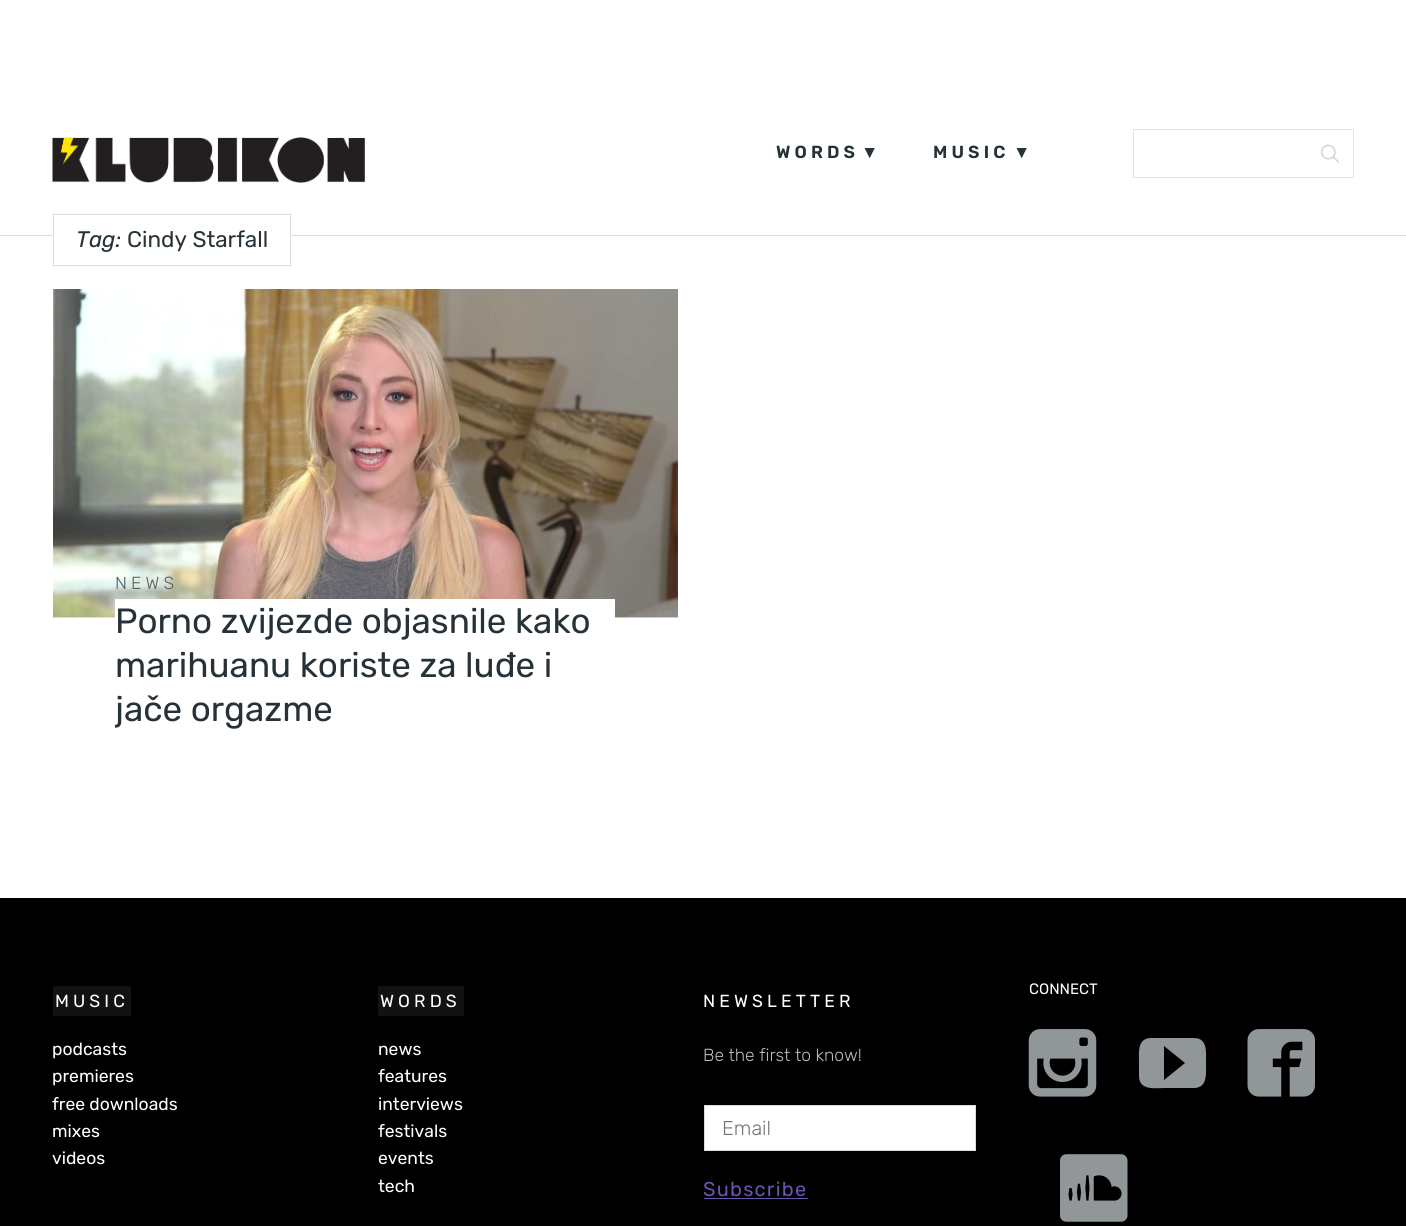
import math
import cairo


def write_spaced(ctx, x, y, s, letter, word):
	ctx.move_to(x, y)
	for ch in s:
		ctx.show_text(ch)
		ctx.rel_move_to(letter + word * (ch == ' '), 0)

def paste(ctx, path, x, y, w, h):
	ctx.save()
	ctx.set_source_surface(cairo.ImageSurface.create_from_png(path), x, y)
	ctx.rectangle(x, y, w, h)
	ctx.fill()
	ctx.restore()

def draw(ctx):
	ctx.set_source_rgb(1, 1, 1)
	ctx.paint()
	paste(ctx, 'media/1.png', 52, 137, 313, 46)
	ctx.select_font_face('Rubik SemiBold')
	ctx.set_font_size(17.5)
	ctx.set_source_rgb(0.149, 0.196, 0.22)
	write_spaced(ctx, 776, 158, 'WORDS', 4.1, 0)
	ctx.select_font_face('Liberation Sans', cairo.FONT_SLANT_NORMAL, cairo.FONT_WEIGHT_BOLD)
	write_spaced(ctx, 861, 158, '▼', 4.1, 0)
	ctx.select_font_face('Rubik SemiBold')
	write_spaced(ctx, 933, 158, 'MUSIC', 4.1, 0)
	ctx.select_font_face('Liberation Sans', cairo.FONT_SLANT_NORMAL, cairo.FONT_WEIGHT_BOLD)
	write_spaced(ctx, 1013, 158, '▼', 4.1, 0)
	paste(ctx, 'media/2.png', 1320, 144, 20, 19)
	ctx.rectangle(1133.5, 129.5, 220, 48)
	ctx.set_source_rgb(0.894, 0.894, 0.894)
	ctx.set_line_width(1)
	ctx.stroke()
	ctx.set_source_rgb(0.867, 0.867, 0.867)
	ctx.rectangle(0, 235, 1406, 1)
	ctx.fill()
	ctx.set_source_rgb(1, 1, 1)
	ctx.rectangle(54, 235, 236, 1)
	ctx.fill()
	ctx.rectangle(53.5, 214.5, 237, 51)
	ctx.set_source_rgb(0.867, 0.867, 0.867)
	ctx.stroke()
	ctx.select_font_face('Rubik', cairo.FONT_SLANT_ITALIC)
	ctx.set_font_size(22.5)
	ctx.set_source_rgb(0.149, 0.196, 0.22)
	ctx.move_to(76, 247)
	ctx.show_text('Tag:')
	ctx.select_font_face('Rubik')
	ctx.move_to(127, 247)
	ctx.show_text('Cindy Starfall')
	paste(ctx, 'media/3.png', 53, 289, 625, 329)
	ctx.select_font_face('Rubik Light')
	ctx.set_font_size(17.5)
	ctx.set_source_rgb(0.333, 0.373, 0.388)
	write_spaced(ctx, 115, 589, 'NEWS', 4.1, 0)
	ctx.set_source_rgb(1, 1, 1)
	ctx.rectangle(115, 599, 500, 19)
	ctx.fill()
	ctx.select_font_face('Rubik')
	ctx.set_font_size(35)
	ctx.set_source_rgb(0.149, 0.196, 0.22)
	ctx.move_to(115, 633)
	ctx.show_text('Porno zvijezde objasnile kako')
	ctx.move_to(115, 677)
	ctx.show_text('marihuanu koriste za luđe i')
	ctx.save()
	ctx.rectangle(115, 568, 500, 162)
	ctx.clip()
	ctx.move_to(115, 721)
	ctx.show_text('jače orgazme')
	ctx.restore()
	ctx.set_source_rgb(0, 0, 0)
	ctx.rectangle(0, 898, 1406, 328)
	ctx.fill()
	ctx.set_font_size(15)
	ctx.set_source_rgb(1, 1, 1)
	ctx.move_to(1029, 994)
	ctx.show_text('CONNECT')
	paste(ctx, 'media/4.png', 1028, 1029, 69, 68)
	ctx.set_source_rgb(0.569, 0.592, 0.6)
	ctx.new_path()
	ctx.move_to(1194, 1038)
	ctx.line_to(1150, 1038)
	ctx.curve_to(1137, 1039, 1139, 1053, 1139, 1063)
	ctx.line_to(1139, 1077)
	ctx.curve_to(1140, 1091, 1156, 1088, 1165, 1088)
	ctx.line_to(1195, 1088)
	ctx.curve_to(1208, 1087, 1206, 1072, 1206, 1063)
	ctx.curve_to(1206, 1053, 1208, 1038, 1194, 1038)
	ctx.close_path()
	ctx.move_to(1164, 1080)
	ctx.line_to(1164, 1046)
	ctx.line_to(1185, 1063)
	ctx.close_path()
	ctx.fill()
	paste(ctx, 'media/5.png', 1247, 1029, 68, 68)
	paste(ctx, 'media/6.png', 1060, 1154, 68, 68)
	ctx.set_source_rgb(0.078, 0.071, 0.078)
	ctx.rectangle(53, 986, 78, 30)
	ctx.fill()
	ctx.set_font_size(17.5)
	ctx.set_source_rgb(1, 1, 1)
	write_spaced(ctx, 55, 1007, 'MUSIC', 4.1, 0)
	for x, y, s in [
		(52, 1055, 'podcasts'),
		(52, 1082, 'premieres'),
		(52, 1110, 'free downloads'),
		(52, 1137, 'mixes'),
		(52, 1164, 'videos'),
	]:
		ctx.move_to(x, y)
		ctx.show_text(s)
	ctx.set_source_rgb(0.078, 0.071, 0.078)
	ctx.rectangle(378, 986, 86, 30)
	ctx.fill()
	ctx.set_source_rgb(1, 1, 1)
	write_spaced(ctx, 380, 1007, 'WORDS', 4.1, 0)
	for x, y, s in [
		(378, 1055, 'news'),
		(378, 1082, 'features'),
		(378, 1110, 'interviews'),
		(378, 1137, 'festivals'),
		(378, 1164, 'events'),
		(378, 1192, 'tech'),
	]:
		ctx.move_to(x, y)
		ctx.show_text(s)
	write_spaced(ctx, 703, 1007, 'NEWSLETTER', 4.1, 0)
	ctx.select_font_face('Rubik Light')
	ctx.set_source_rgb(0.733, 0.725, 0.733)
	ctx.move_to(703, 1061)
	ctx.show_text('Be the first to know!')
	ctx.set_source_rgb(1, 1, 1)
	ctx.rectangle(704.5, 1105.5, 271, 45)
	ctx.fill_preserve()
	ctx.set_source_rgb(0.867, 0.867, 0.867)
	ctx.stroke()
	ctx.set_font_size(20)
	ctx.set_source_rgb(0.459, 0.459, 0.459)
	ctx.move_to(722, 1135)
	ctx.show_text('Email')
	ctx.select_font_face('Rubik')
	ctx.set_source_rgb(0.408, 0.329, 0.678)
	write_spaced(ctx, 703, 1196, 'Subscribe', 1.25, 0)
	ctx.rectangle(704, 1198, 104, 1)
	ctx.fill()


surface = cairo.ImageSurface(cairo.FORMAT_RGB24, 1406, 1226)
ctx = cairo.Context(surface)
options = cairo.FontOptions()
options.set_hint_metrics(cairo.HINT_METRICS_OFF)
options.set_hint_style(cairo.HINT_STYLE_NONE)
ctx.set_font_options(options)
ctx.set_miter_limit(4)
draw(ctx)
surface.write_to_png('image.png')
